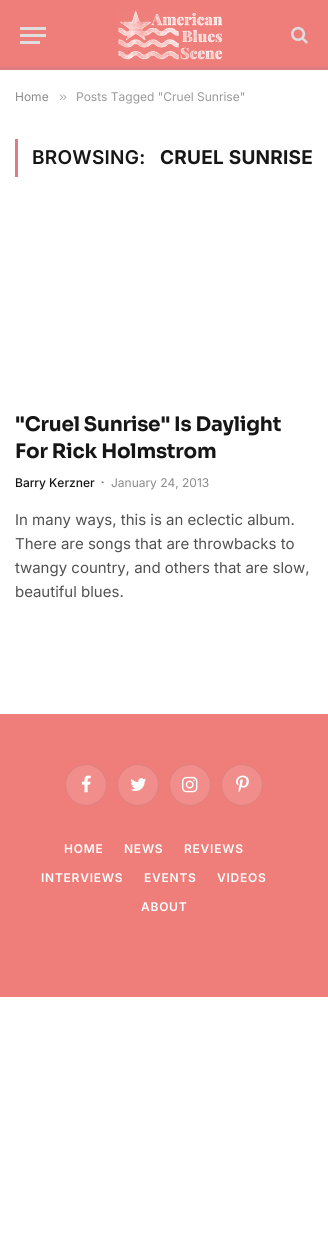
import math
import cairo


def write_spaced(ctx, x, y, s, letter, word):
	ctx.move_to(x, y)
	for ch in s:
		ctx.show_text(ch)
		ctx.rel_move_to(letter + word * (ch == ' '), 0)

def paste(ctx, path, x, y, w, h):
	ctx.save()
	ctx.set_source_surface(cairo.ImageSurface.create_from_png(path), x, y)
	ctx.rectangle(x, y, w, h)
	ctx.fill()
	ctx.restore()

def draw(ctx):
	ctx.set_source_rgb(1, 1, 1)
	ctx.paint()
	ctx.set_source_rgb(0.937, 0.494, 0.478)
	ctx.rectangle(0, 0, 328, 67)
	ctx.fill()
	ctx.set_source_rgb(0.867, 0.486, 0.51)
	ctx.rectangle(0, 67, 328, 3)
	ctx.fill()
	ctx.set_source_rgb(0.867, 0.867, 0.867)
	ctx.rectangle(20, 41, 20, 3)
	ctx.rectangle(20, 27, 26, 3)
	ctx.rectangle(20, 34, 26, 3)
	ctx.fill()
	paste(ctx, 'media/1.png', 118, 10, 105, 50)
	paste(ctx, 'media/2.png', 291, 26, 17, 18)
	ctx.select_font_face('Inter')
	ctx.set_font_size(12)
	ctx.set_source_rgb(0.541, 0.541, 0.541)
	ctx.move_to(15, 101)
	ctx.show_text('Home')
	ctx.select_font_face('Liberation Sans')
	ctx.set_font_size(14)
	ctx.set_source_rgb(0.678, 0.678, 0.678)
	ctx.move_to(59, 101)
	ctx.show_text('»')
	ctx.select_font_face('Inter')
	ctx.set_font_size(12)
	ctx.set_source_rgb(0.6, 0.6, 0.6)
	ctx.move_to(76, 101)
	ctx.show_text('Posts Tagged "Cruel Sunrise"')
	ctx.set_source_rgb(0.867, 0.486, 0.51)
	ctx.rectangle(15, 139, 3, 38)
	ctx.fill()
	ctx.select_font_face('Inter SemiBold')
	ctx.set_font_size(19)
	ctx.set_source_rgb(0.086, 0.086, 0.086)
	write_spaced(ctx, 32, 164, 'BROWSING:', 0.25, 0)
	ctx.select_font_face('Inter', cairo.FONT_SLANT_NORMAL, cairo.FONT_WEIGHT_BOLD)
	write_spaced(ctx, 160, 164, 'CRUEL SUNRISE', 0.25, 0)
	ctx.select_font_face('Sora', cairo.FONT_SLANT_NORMAL, cairo.FONT_WEIGHT_BOLD)
	ctx.set_font_size(20)
	write_spaced(ctx, 15, 431, '"Cruel Sunrise" Is Daylight', -0.2, 0)
	write_spaced(ctx, 15, 458, 'For Rick Holmstrom', -0.2, 0)
	ctx.select_font_face('Inter Medium')
	ctx.set_font_size(12)
	ctx.move_to(15, 487)
	ctx.show_text('Barry Kerzner')
	ctx.select_font_face('Noto Sans')
	ctx.set_font_size(10)
	ctx.set_source_rgb(0.541, 0.541, 0.541)
	ctx.move_to(101, 486)
	ctx.show_text('‣')
	ctx.select_font_face('Inter')
	ctx.set_font_size(12)
	ctx.move_to(111, 487)
	ctx.show_text('January 24, 2013')
	ctx.set_font_size(15)
	ctx.set_source_rgb(0.314, 0.314, 0.314)
	for x, y, s in [
		(15, 525, 'In many ways, this is an eclectic album.'),
		(15, 549, 'There are songs that are throwbacks to'),
		(15, 573, 'twangy country, and others that are slow,'),
		(15, 597, 'beautiful blues.'),
	]:
		ctx.move_to(x, y)
		ctx.show_text(s)
	ctx.set_source_rgb(0.937, 0.494, 0.478)
	ctx.rectangle(0, 714, 328, 283)
	ctx.fill()
	ctx.set_source_rgb(0.945, 0.553, 0.541)
	ctx.arc(86, 785, 21, 0, 2 * math.pi)
	ctx.fill()
	ctx.arc(86, 785, 20.5, 0, 2 * math.pi)
	ctx.set_source_rgba(0, 0, 0, 0.09)
	ctx.set_line_width(1)
	ctx.stroke()
	paste(ctx, 'media/3.png', 81, 775, 10, 18)
	ctx.set_source_rgb(0.945, 0.553, 0.541)
	ctx.arc(138, 785, 21, 0, 2 * math.pi)
	ctx.fill()
	ctx.arc(138, 785, 20.5, 0, 2 * math.pi)
	ctx.set_source_rgba(0, 0, 0, 0.09)
	ctx.stroke()
	paste(ctx, 'media/4.png', 130, 778, 17, 13)
	ctx.set_source_rgb(0.945, 0.553, 0.541)
	ctx.arc(190, 785, 21, 0, 2 * math.pi)
	ctx.fill()
	ctx.arc(190, 785, 20.5, 0, 2 * math.pi)
	ctx.set_source_rgba(0, 0, 0, 0.09)
	ctx.stroke()
	paste(ctx, 'media/5.png', 182, 776, 16, 17)
	ctx.set_source_rgb(0.945, 0.553, 0.541)
	ctx.arc(242, 785, 21, 0, 2 * math.pi)
	ctx.fill()
	ctx.arc(242, 785, 20.5, 0, 2 * math.pi)
	ctx.set_source_rgba(0, 0, 0, 0.09)
	ctx.stroke()
	paste(ctx, 'media/6.png', 236, 775, 13, 18)
	ctx.select_font_face('Inter SemiBold')
	ctx.set_font_size(12)
	ctx.set_source_rgb(1, 1, 1)
	for x, y, s in [
		(64, 853, 'HOME'),
		(124, 853, 'NEWS'),
		(184, 853, 'REVIEWS'),
		(41, 882, 'INTERVIEWS'),
		(144, 882, 'EVENTS'),
		(217, 882, 'VIDEOS'),
		(141, 911, 'ABOUT'),
	]:
		write_spaced(ctx, x, y, s, 0.75, 0)


surface = cairo.ImageSurface(cairo.FORMAT_RGB24, 328, 1248)
ctx = cairo.Context(surface)
options = cairo.FontOptions()
options.set_hint_metrics(cairo.HINT_METRICS_OFF)
options.set_hint_style(cairo.HINT_STYLE_NONE)
ctx.set_font_options(options)
ctx.set_miter_limit(4)
draw(ctx)
surface.write_to_png('image.png')
